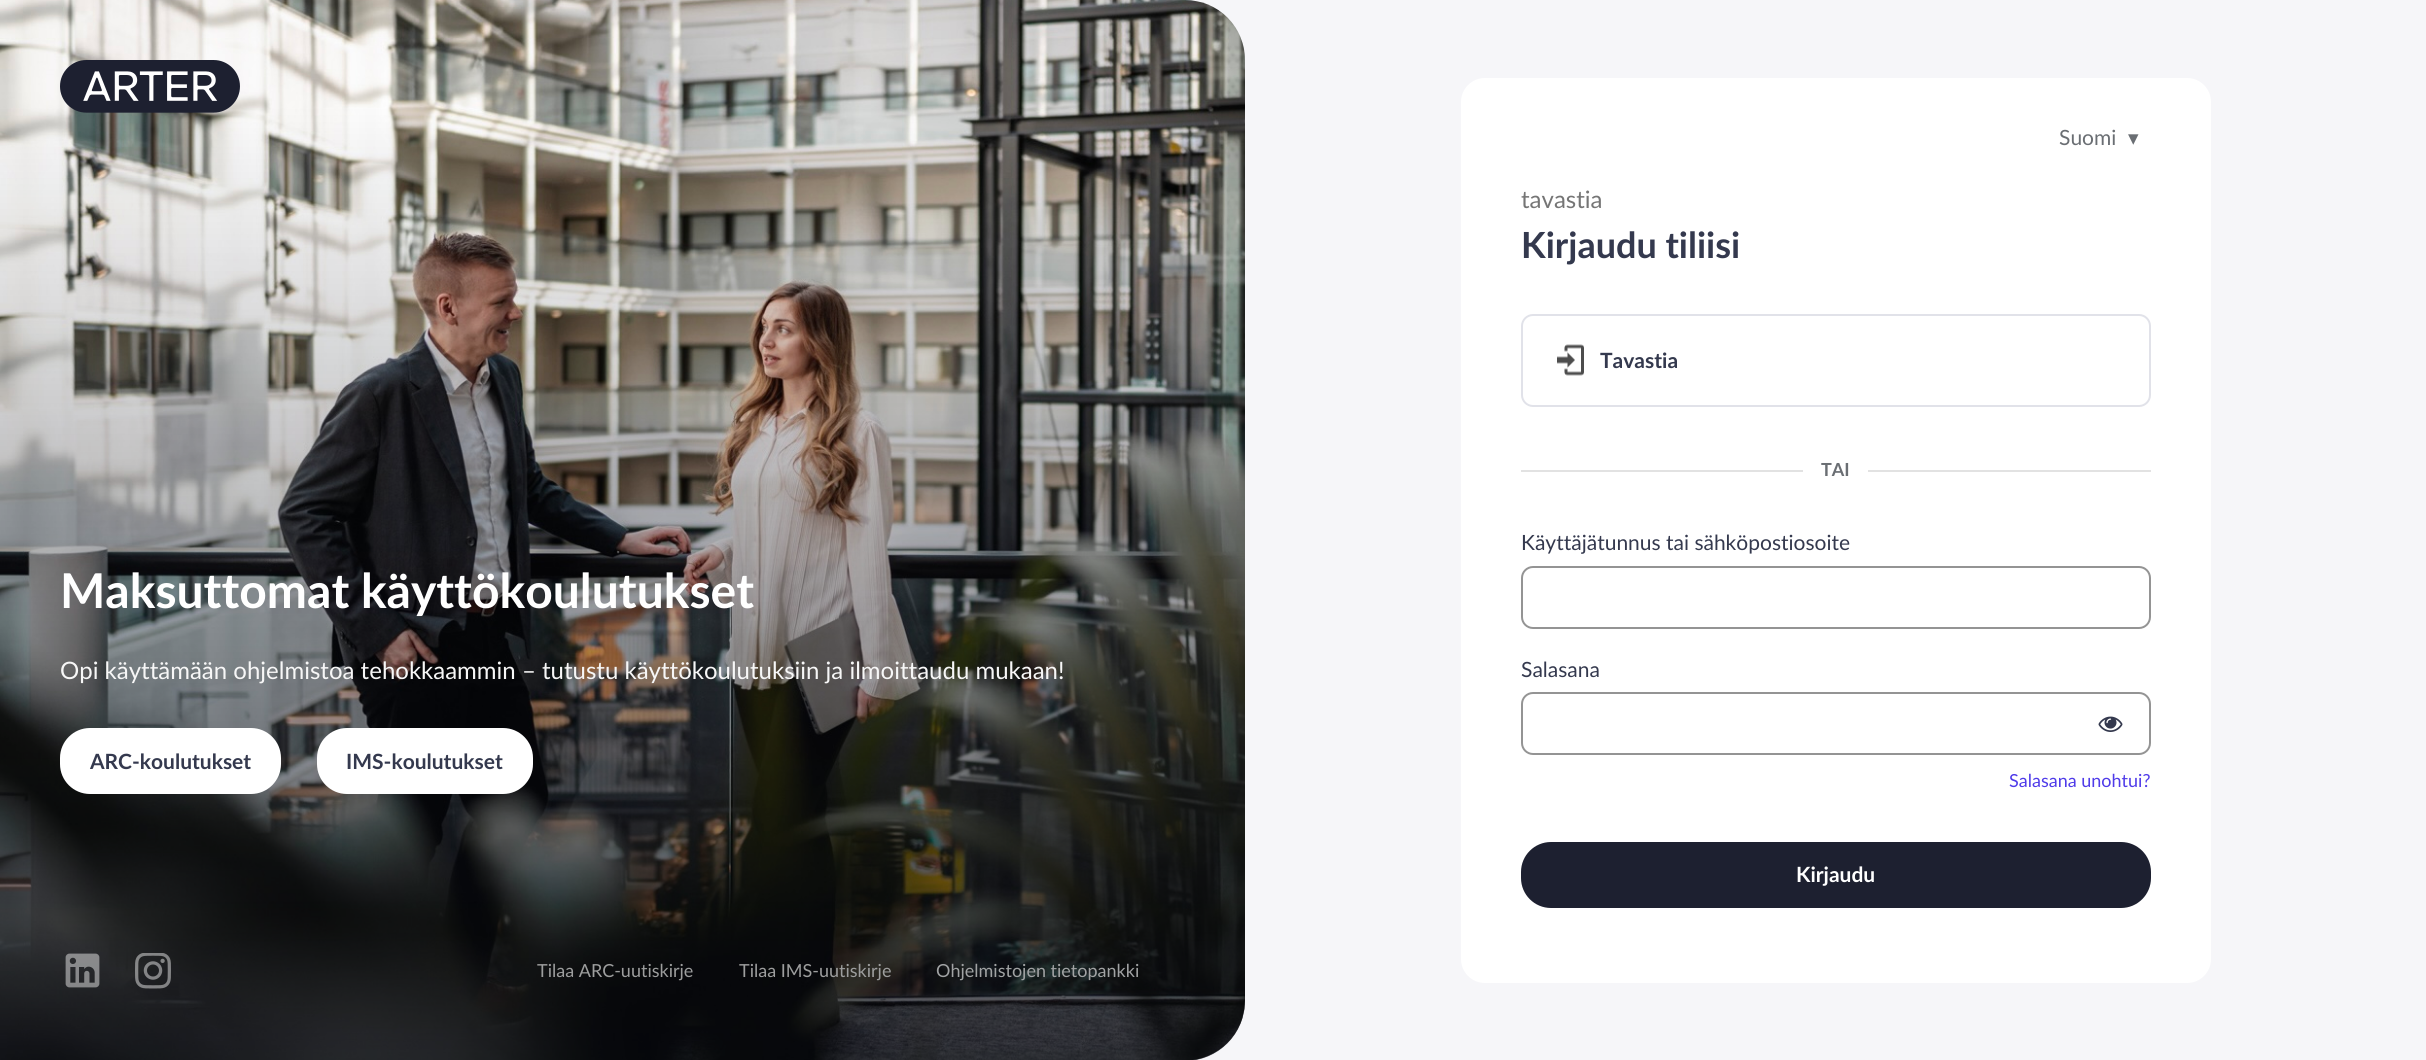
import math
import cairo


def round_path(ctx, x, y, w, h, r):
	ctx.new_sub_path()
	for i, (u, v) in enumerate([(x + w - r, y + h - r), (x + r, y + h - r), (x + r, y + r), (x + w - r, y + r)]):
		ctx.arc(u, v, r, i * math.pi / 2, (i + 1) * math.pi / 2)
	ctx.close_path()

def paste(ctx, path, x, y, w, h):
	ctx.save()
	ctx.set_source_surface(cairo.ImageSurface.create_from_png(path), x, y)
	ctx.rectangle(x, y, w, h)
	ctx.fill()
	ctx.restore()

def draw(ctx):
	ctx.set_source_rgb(0.961, 0.961, 0.973)
	ctx.paint()
	paste(ctx, 'media/1.png', 0, 0, 1245, 1060)
	gradient = cairo.LinearGradient(623, 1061, 623, 0)
	gradient.add_color_stop_rgba(0, 0.035, 0.043, 0.071, 0.6)
	gradient.add_color_stop_rgba(0.9, 0.035, 0.043, 0.071, 0)
	ctx.set_source(gradient)
	ctx.new_path()
	ctx.move_to(0, 0)
	ctx.line_to(1185, 0)
	ctx.curve_to(1218, 0, 1245, 27, 1245, 60)
	ctx.line_to(1245, 1001)
	ctx.curve_to(1245, 1034, 1218, 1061, 1185, 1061)
	ctx.line_to(0, 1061)
	ctx.close_path()
	ctx.fill()
	paste(ctx, 'media/2.png', 60, 60, 180, 53)
	ctx.select_font_face('Lato', cairo.FONT_SLANT_NORMAL, cairo.FONT_WEIGHT_BOLD)
	ctx.set_font_size(48)
	ctx.set_source_rgb(1, 1, 1)
	ctx.move_to(60, 608)
	ctx.show_text('Maksuttomat käyttökoulutukset')
	ctx.select_font_face('Lato')
	ctx.set_font_size(24)
	ctx.set_source_rgb(0.965, 0.965, 0.965)
	ctx.move_to(60, 679)
	ctx.show_text('Opi käyttämään ohjelmistoa tehokkaammin – tutustu käyttökoulutuksiin ja ilmoittaudu mukaan!')
	ctx.set_source_rgb(1, 1, 1)
	round_path(ctx, 60, 728, 221, 66, 30)
	ctx.fill()
	ctx.select_font_face('Lato', cairo.FONT_SLANT_NORMAL, cairo.FONT_WEIGHT_BOLD)
	ctx.set_font_size(21)
	ctx.set_source_rgb(0.204, 0.224, 0.306)
	ctx.move_to(90, 769)
	ctx.show_text('ARC-koulutukset')
	ctx.set_source_rgb(1, 1, 1)
	round_path(ctx, 317, 728, 216, 66, 30)
	ctx.fill()
	ctx.set_source_rgb(0.204, 0.224, 0.306)
	ctx.move_to(346, 769)
	ctx.show_text('IMS-koulutukset')
	paste(ctx, 'media/3.png', 65, 953, 35, 35)
	paste(ctx, 'media/4.png', 135, 953, 36, 36)
	ctx.select_font_face('Lato')
	ctx.set_font_size(18)
	ctx.set_source_rgb(0.616, 0.62, 0.62)
	ctx.move_to(537, 977)
	ctx.show_text('Tilaa ARC-uutiskirje')
	ctx.move_to(739, 977)
	ctx.show_text('Tilaa IMS-uutiskirje')
	ctx.set_source_rgb(0.631, 0.639, 0.643)
	ctx.move_to(936, 977)
	ctx.show_text('Ohjelmistojen tietopankki')
	ctx.set_source_rgb(1, 1, 1)
	round_path(ctx, 1461, 78, 750, 905, 24)
	ctx.fill()
	ctx.set_font_size(21)
	ctx.set_source_rgb(0.416, 0.431, 0.451)
	ctx.move_to(2059, 145)
	ctx.show_text('Suomi')
	ctx.select_font_face('DejaVu Sans')
	ctx.move_to(2128, 145)
	ctx.show_text('▾')
	ctx.select_font_face('Lato')
	ctx.set_font_size(24)
	ctx.set_source_rgb(0.459, 0.459, 0.459)
	ctx.move_to(1521, 208)
	ctx.show_text('tavastia')
	ctx.select_font_face('Lato', cairo.FONT_SLANT_NORMAL, cairo.FONT_WEIGHT_BOLD)
	ctx.set_font_size(36)
	ctx.set_source_rgb(0.204, 0.224, 0.306)
	ctx.move_to(1521, 258)
	ctx.show_text('Kirjaudu tiliisi')
	round_path(ctx, 1522, 315, 628, 91, 11)
	ctx.set_source_rgb(0.882, 0.886, 0.914)
	ctx.stroke()
	paste(ctx, 'media/5.png', 1557, 344, 27, 32)
	ctx.set_font_size(21)
	ctx.set_source_rgb(0.204, 0.224, 0.306)
	ctx.move_to(1600, 368)
	ctx.show_text('Tavastia')
	ctx.set_source_rgb(0.886, 0.886, 0.886)
	ctx.rectangle(1521, 470, 282, 2)
	ctx.fill()
	ctx.set_font_size(18)
	ctx.set_source_rgb(0.416, 0.431, 0.451)
	ctx.move_to(1821, 476)
	ctx.show_text('TAI')
	ctx.set_source_rgb(0.886, 0.886, 0.886)
	ctx.rectangle(1868, 470, 283, 2)
	ctx.fill()
	ctx.select_font_face('Lato')
	ctx.set_font_size(21)
	ctx.set_source_rgb(0.204, 0.224, 0.306)
	ctx.move_to(1521, 550)
	ctx.show_text('Käyttäjätunnus tai sähköpostiosoite')
	round_path(ctx, 1522, 567, 628, 61, 11)
	ctx.set_source_rgb(0.58, 0.58, 0.58)
	ctx.stroke()
	ctx.set_source_rgb(0.204, 0.224, 0.306)
	ctx.move_to(1521, 677)
	ctx.show_text('Salasana')
	round_path(ctx, 1522, 693, 628, 61, 11)
	ctx.set_source_rgb(0.58, 0.58, 0.58)
	ctx.stroke()
	paste(ctx, 'media/6.png', 2098, 716, 25, 16)
	ctx.set_font_size(18)
	ctx.set_source_rgb(0.31, 0.231, 0.914)
	ctx.move_to(2009, 787)
	ctx.show_text('Salasana unohtui?')
	ctx.set_source_rgb(0.114, 0.125, 0.188)
	round_path(ctx, 1521, 842, 630, 66, 30)
	ctx.fill()
	ctx.select_font_face('Lato', cairo.FONT_SLANT_NORMAL, cairo.FONT_WEIGHT_BOLD)
	ctx.set_font_size(21)
	ctx.set_source_rgb(1, 1, 1)
	ctx.move_to(1796, 882)
	ctx.show_text('Kirjaudu')


surface = cairo.ImageSurface(cairo.FORMAT_RGB24, 2426, 1060)
ctx = cairo.Context(surface)
options = cairo.FontOptions()
options.set_hint_metrics(cairo.HINT_METRICS_OFF)
options.set_hint_style(cairo.HINT_STYLE_NONE)
ctx.set_font_options(options)
ctx.set_miter_limit(4)
draw(ctx)
surface.write_to_png('image.png')
